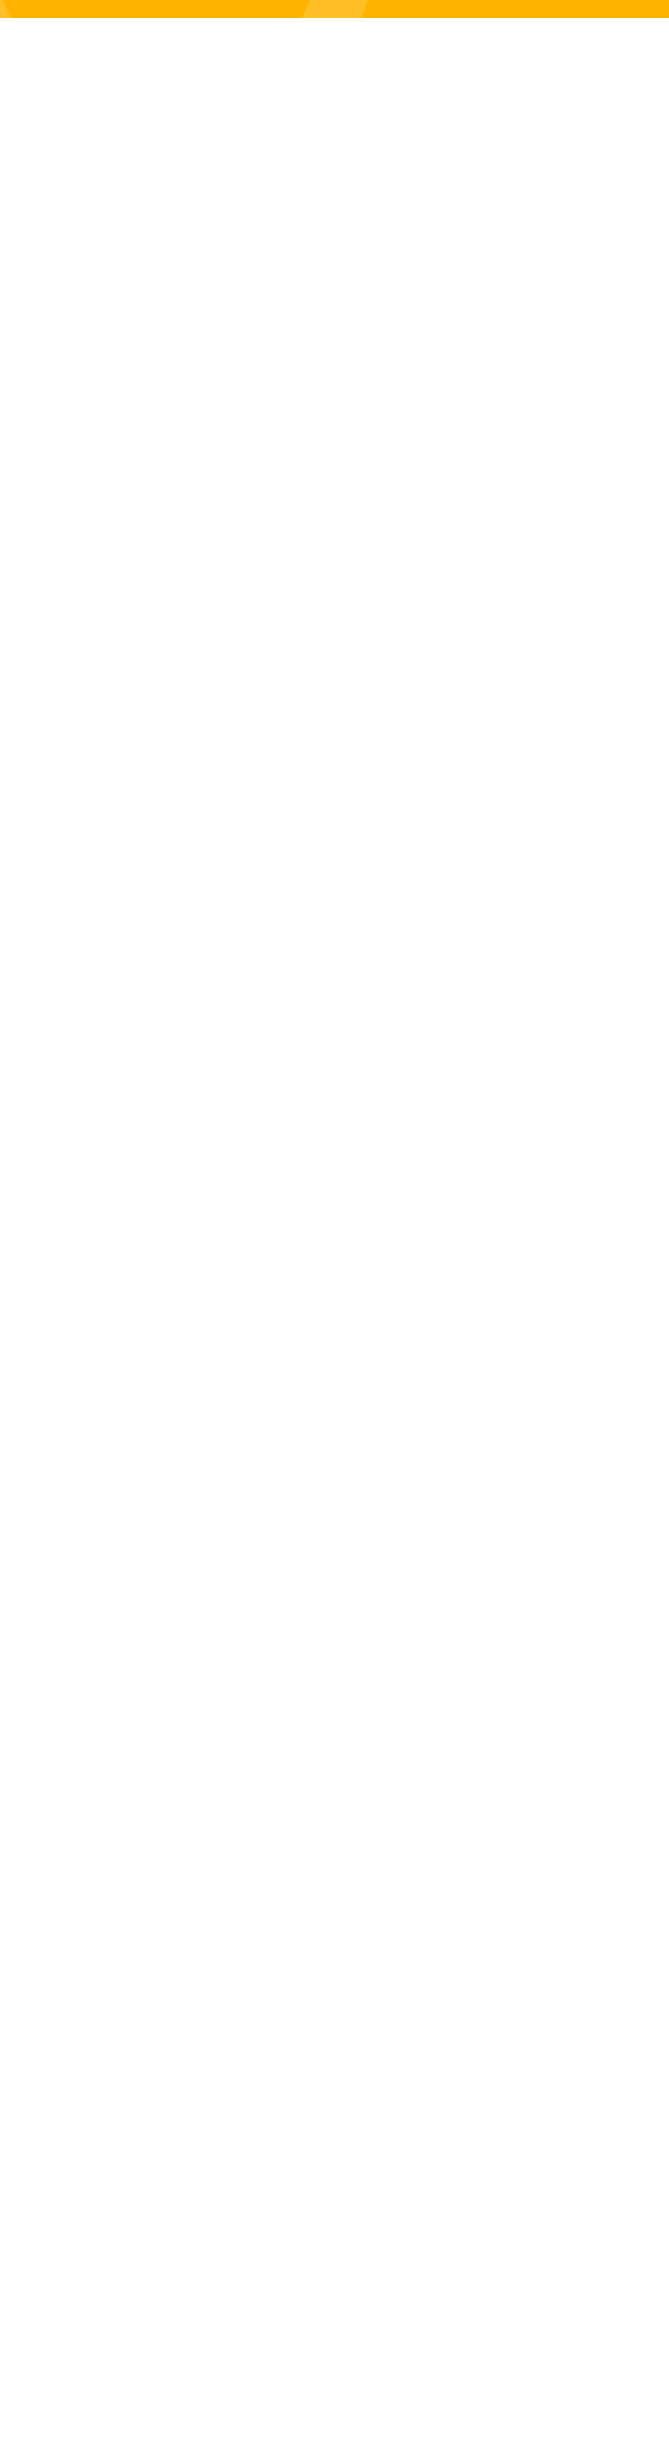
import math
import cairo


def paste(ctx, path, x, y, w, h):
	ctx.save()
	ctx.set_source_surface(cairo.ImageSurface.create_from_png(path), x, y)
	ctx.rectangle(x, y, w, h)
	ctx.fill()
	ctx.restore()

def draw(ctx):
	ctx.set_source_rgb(1, 1, 1)
	ctx.paint()
	ctx.set_source_rgb(1, 0.702, 0)
	ctx.rectangle(0, 0, 669, 18)
	ctx.fill()
	paste(ctx, 'media/1.png', 0, 0, 367, 18)


surface = cairo.ImageSurface(cairo.FORMAT_RGB24, 669, 2442)
ctx = cairo.Context(surface)
options = cairo.FontOptions()
options.set_hint_metrics(cairo.HINT_METRICS_OFF)
options.set_hint_style(cairo.HINT_STYLE_NONE)
ctx.set_font_options(options)
ctx.set_miter_limit(4)
draw(ctx)
surface.write_to_png('image.png')
